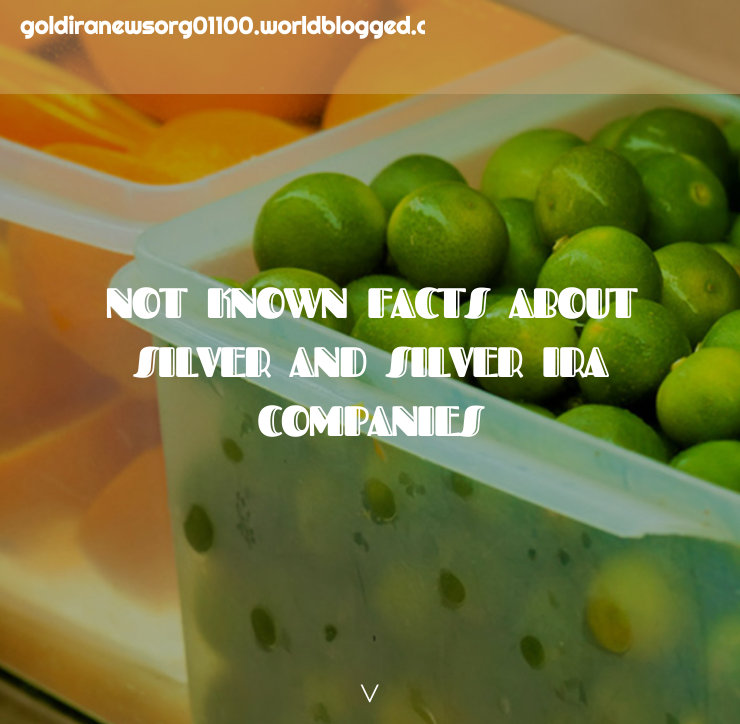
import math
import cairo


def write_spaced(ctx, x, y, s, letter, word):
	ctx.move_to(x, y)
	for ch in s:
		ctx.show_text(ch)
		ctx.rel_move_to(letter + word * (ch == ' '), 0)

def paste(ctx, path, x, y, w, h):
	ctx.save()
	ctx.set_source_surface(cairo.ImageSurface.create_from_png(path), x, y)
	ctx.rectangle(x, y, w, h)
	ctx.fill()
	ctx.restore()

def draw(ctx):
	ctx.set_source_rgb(1, 1, 1)
	ctx.paint()
	paste(ctx, 'media/1.png', 0, 0, 740, 724)
	ctx.set_source_rgba(0.812, 0.651, 0.439, 0.5)
	ctx.rectangle(0, 0, 740, 94)
	ctx.fill()
	ctx.save()
	ctx.rectangle(15, 9, 410, 75)
	ctx.clip()
	ctx.select_font_face('Righteous', cairo.FONT_SLANT_NORMAL, cairo.FONT_WEIGHT_BOLD)
	ctx.set_font_size(23.75)
	ctx.set_source_rgb(1, 1, 1)
	ctx.move_to(20, 34)
	ctx.show_text('goldiranewsorg01100.worldblogged.c')
	ctx.restore()
	ctx.select_font_face('Fascinate Inline')
	ctx.set_font_size(42.5)
	ctx.set_source_rgb(1, 1, 1)
	write_spaced(ctx, 105, 318, 'NOT KNOWN FACTS ABOUT', -2.5, 10)
	write_spaced(ctx, 133, 377, 'SILVER AND SILVER IRA', -2.5, 10)
	write_spaced(ctx, 257, 436, 'COMPANIES', -2.5, 0)
	ctx.select_font_face('Liberation Serif')
	ctx.set_font_size(38)
	ctx.move_to(359, 706)
	ctx.show_text('˅')


surface = cairo.ImageSurface(cairo.FORMAT_RGB24, 740, 724)
ctx = cairo.Context(surface)
options = cairo.FontOptions()
options.set_hint_metrics(cairo.HINT_METRICS_OFF)
options.set_hint_style(cairo.HINT_STYLE_NONE)
ctx.set_font_options(options)
ctx.set_miter_limit(4)
draw(ctx)
surface.write_to_png('image.png')
